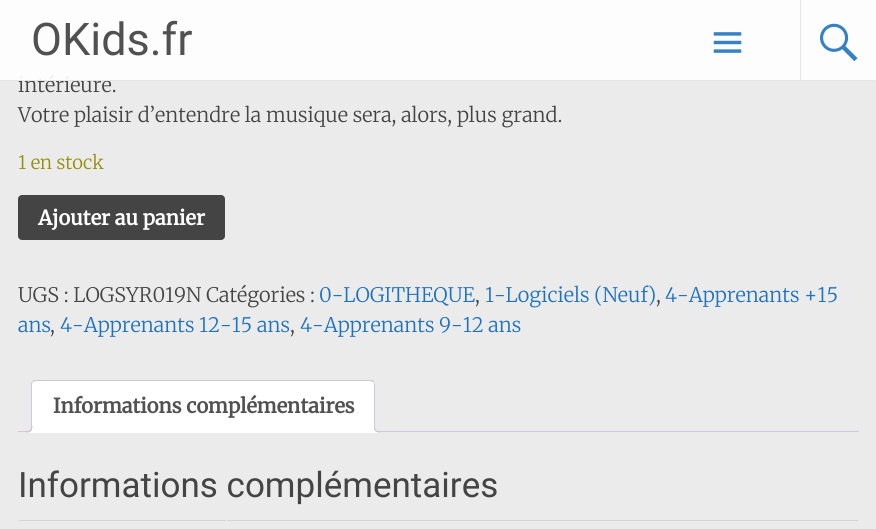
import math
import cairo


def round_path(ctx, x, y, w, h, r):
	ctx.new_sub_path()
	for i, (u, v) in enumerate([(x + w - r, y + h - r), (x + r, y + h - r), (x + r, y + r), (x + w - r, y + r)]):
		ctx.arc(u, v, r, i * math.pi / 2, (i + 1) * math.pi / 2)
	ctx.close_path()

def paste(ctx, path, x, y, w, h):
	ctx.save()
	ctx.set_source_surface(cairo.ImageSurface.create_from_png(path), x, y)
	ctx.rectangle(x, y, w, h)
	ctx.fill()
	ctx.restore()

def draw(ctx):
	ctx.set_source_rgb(0.918, 0.918, 0.918)
	ctx.paint()
	ctx.select_font_face('Merriweather Light')
	ctx.set_font_size(20)
	ctx.set_source_rgb(0.267, 0.267, 0.267)
	ctx.move_to(18, 92)
	ctx.show_text('intérieure.')
	ctx.set_source_rgba(1, 1, 1, 0.9)
	ctx.rectangle(0, 0, 876, 81)
	ctx.fill()
	ctx.set_source_rgba(0.882, 0.894, 0.902, 0.9)
	ctx.rectangle(0, 80, 876, 1)
	ctx.fill()
	ctx.select_font_face('Roboto')
	ctx.set_font_size(45)
	ctx.set_source_rgb(0.318, 0.318, 0.318)
	ctx.move_to(31, 55)
	ctx.show_text('OKids.fr')
	paste(ctx, 'media/1.png', 713, 32, 29, 21)
	ctx.set_source_rgba(0.882, 0.894, 0.902, 0.9)
	ctx.rectangle(800, 0, 1, 80)
	ctx.fill()
	paste(ctx, 'media/2.png', 820, 23, 38, 39)
	ctx.select_font_face('Merriweather Light')
	ctx.set_font_size(20)
	ctx.set_source_rgb(0.267, 0.267, 0.267)
	ctx.move_to(18, 122)
	ctx.show_text('Votre plaisir d’entendre la musique sera, alors, plus grand.')
	ctx.set_font_size(18.5)
	ctx.set_source_rgb(0.584, 0.557, 0.035)
	ctx.move_to(18, 169)
	ctx.show_text('1 en stock')
	ctx.set_source_rgb(0.267, 0.267, 0.267)
	round_path(ctx, 18, 195, 207, 45, 4)
	ctx.fill()
	ctx.select_font_face('Merriweather', cairo.FONT_SLANT_NORMAL, cairo.FONT_WEIGHT_BOLD)
	ctx.set_font_size(20)
	ctx.set_source_rgb(1, 1, 1)
	ctx.move_to(38, 225)
	ctx.show_text('Ajouter au panier')
	ctx.select_font_face('Merriweather Light')
	ctx.set_source_rgb(0.267, 0.267, 0.267)
	ctx.move_to(18, 302)
	ctx.show_text('UGS : LOGSYR019N Catégories :')
	ctx.set_source_rgb(0.118, 0.451, 0.745)
	ctx.move_to(319, 302)
	ctx.show_text('0-LOGITHEQUE')
	ctx.set_source_rgb(0.267, 0.267, 0.267)
	ctx.move_to(475, 302)
	ctx.show_text(',')
	ctx.set_source_rgb(0.118, 0.451, 0.745)
	ctx.move_to(485, 302)
	ctx.show_text('1-Logiciels (Neuf)')
	ctx.set_source_rgb(0.267, 0.267, 0.267)
	ctx.move_to(656, 302)
	ctx.show_text(',')
	ctx.set_source_rgb(0.118, 0.451, 0.745)
	ctx.move_to(665, 302)
	ctx.show_text('4-Apprenants +15')
	ctx.move_to(18, 332)
	ctx.show_text('ans')
	ctx.set_source_rgb(0.267, 0.267, 0.267)
	ctx.move_to(50, 332)
	ctx.show_text(',')
	ctx.set_source_rgb(0.118, 0.451, 0.745)
	ctx.move_to(60, 332)
	ctx.show_text('4-Apprenants 12-15 ans')
	ctx.set_source_rgb(0.267, 0.267, 0.267)
	ctx.move_to(290, 332)
	ctx.show_text(',')
	ctx.set_source_rgb(0.118, 0.451, 0.745)
	ctx.move_to(300, 332)
	ctx.show_text('4-Apprenants 9-12 ans')
	ctx.set_source_rgb(0.812, 0.784, 0.847)
	ctx.rectangle(18, 431, 841, 1)
	ctx.fill()
	ctx.set_source_rgb(1, 1, 1)
	ctx.new_path()
	ctx.move_to(36, 380)
	ctx.line_to(370, 380)
	ctx.curve_to(373, 380, 375, 382, 375, 385)
	ctx.line_to(375, 433)
	ctx.line_to(31, 433)
	ctx.line_to(31, 385)
	ctx.curve_to(31, 382, 33, 380, 36, 380)
	ctx.close_path()
	ctx.fill()
	ctx.set_source_rgb(0.812, 0.784, 0.847)
	ctx.new_path()
	ctx.move_to(36, 380)
	ctx.curve_to(35, 380, 33, 380, 33, 381)
	ctx.line_to(33, 382)
	ctx.line_to(36, 381)
	ctx.line_to(370, 381)
	ctx.line_to(373, 382)
	ctx.line_to(374, 381)
	ctx.curve_to(373, 380, 372, 380, 370, 380)
	ctx.close_path()
	ctx.fill()
	ctx.new_path()
	ctx.move_to(375, 432)
	ctx.line_to(375, 385)
	ctx.curve_to(375, 384, 374, 382, 374, 381)
	ctx.line_to(373, 382)
	ctx.curve_to(374, 383, 374, 384, 374, 385)
	ctx.line_to(374, 431)
	ctx.close_path()
	ctx.fill()
	ctx.new_path()
	ctx.move_to(31, 383)
	ctx.line_to(33, 381)
	ctx.line_to(33, 382)
	ctx.line_to(32, 384)
	ctx.line_to(32, 431)
	ctx.line_to(33, 431)
	ctx.line_to(32, 432)
	ctx.line_to(31, 432)
	ctx.close_path()
	ctx.fill()
	ctx.select_font_face('Merriweather', cairo.FONT_SLANT_NORMAL, cairo.FONT_WEIGHT_BOLD)
	ctx.set_source_rgb(0.318, 0.318, 0.318)
	ctx.move_to(53, 413)
	ctx.show_text('Informations complémentaires')
	ctx.save()
	ctx.rectangle(18, 380, 841, 53)
	ctx.clip()
	ctx.set_source_rgb(1, 1, 1)
	ctx.new_path()
	ctx.move_to(29, 432.5)
	ctx.line_to(29, 435)
	ctx.curve_to(33, 435, 35, 433, 35, 429)
	ctx.line_to(32.5, 429)
	ctx.curve_to(32, 430.5, 30.5, 432, 29, 432.5)
	ctx.close_path()
	ctx.fill()
	ctx.restore()
	ctx.set_source_rgb(0.812, 0.784, 0.847)
	ctx.set_fill_rule(cairo.FILL_RULE_EVEN_ODD)
	ctx.new_path()
	ctx.move_to(26, 426)
	ctx.line_to(32.5, 426)
	ctx.curve_to(32.5, 430.5, 30.5, 432.5, 26, 432.5)
	ctx.close_path()
	ctx.move_to(26, 426)
	ctx.line_to(31, 426)
	ctx.curve_to(31, 430, 30, 431, 26, 431)
	ctx.close_path()
	ctx.fill()
	ctx.save()
	ctx.set_fill_rule(cairo.FILL_RULE_WINDING)
	ctx.rectangle(18, 380, 841, 53)
	ctx.clip()
	ctx.set_source_rgb(1, 1, 1)
	ctx.new_path()
	ctx.move_to(371, 429)
	ctx.curve_to(371, 434, 373.5, 435, 378, 435)
	ctx.line_to(378, 432.5)
	ctx.curve_to(376, 432, 374.5, 431, 374, 429)
	ctx.close_path()
	ctx.fill()
	ctx.restore()
	ctx.new_path()
	ctx.move_to(374, 426)
	ctx.line_to(380, 426)
	ctx.line_to(380, 432.5)
	ctx.curve_to(377, 432.5, 374, 431, 374, 427.5)
	ctx.close_path()
	ctx.move_to(375, 426)
	ctx.line_to(380, 426)
	ctx.line_to(380, 431)
	ctx.curve_to(377.5, 431, 375, 430.5, 375, 427.5)
	ctx.close_path()
	ctx.fill()
	ctx.select_font_face('Roboto')
	ctx.set_font_size(35)
	ctx.set_source_rgb(0.267, 0.267, 0.267)
	ctx.move_to(18, 497)
	ctx.show_text('Informations complémentaires')
	ctx.set_source_rgb(0.827, 0.827, 0.827)
	ctx.rectangle(18, 520, 841, 1)
	ctx.fill()
	ctx.set_source_rgb(0.918, 0.918, 0.918)
	ctx.rectangle(18, 520, 1, 9)
	ctx.rectangle(858, 520, 1, 9)
	ctx.rectangle(226, 520, 1, 9)
	ctx.fill()


surface = cairo.ImageSurface(cairo.FORMAT_RGB24, 876, 529)
ctx = cairo.Context(surface)
options = cairo.FontOptions()
options.set_hint_metrics(cairo.HINT_METRICS_OFF)
options.set_hint_style(cairo.HINT_STYLE_NONE)
ctx.set_font_options(options)
ctx.set_miter_limit(4)
draw(ctx)
surface.write_to_png('image.png')
